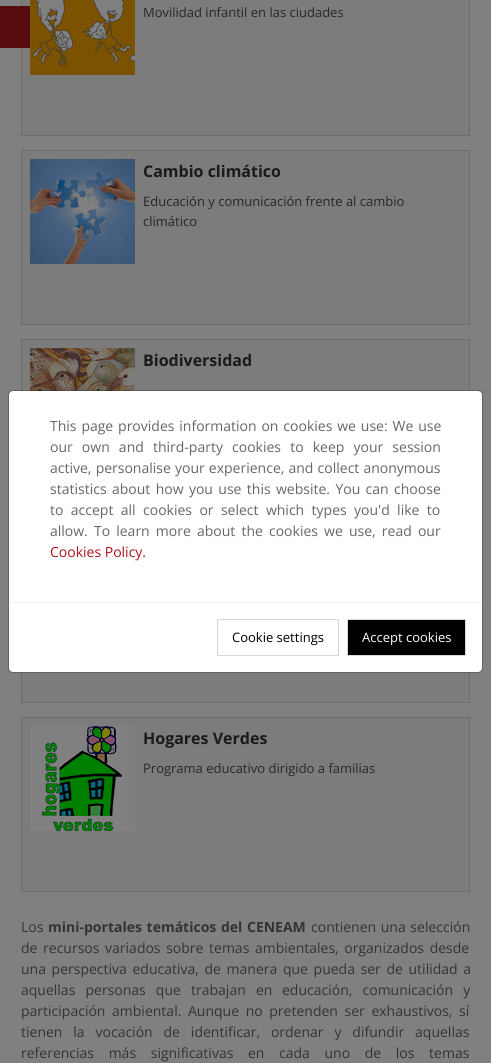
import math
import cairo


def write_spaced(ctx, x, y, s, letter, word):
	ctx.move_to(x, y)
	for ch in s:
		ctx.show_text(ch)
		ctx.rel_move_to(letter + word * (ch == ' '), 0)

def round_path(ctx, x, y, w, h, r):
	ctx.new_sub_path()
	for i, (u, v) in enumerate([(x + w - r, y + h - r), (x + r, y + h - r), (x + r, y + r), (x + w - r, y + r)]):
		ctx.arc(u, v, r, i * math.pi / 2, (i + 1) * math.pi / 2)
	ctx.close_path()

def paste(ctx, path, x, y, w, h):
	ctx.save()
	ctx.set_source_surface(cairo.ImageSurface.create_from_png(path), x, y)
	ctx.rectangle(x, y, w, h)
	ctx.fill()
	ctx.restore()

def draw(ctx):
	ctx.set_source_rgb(0.502, 0.502, 0.502)
	ctx.paint()
	ctx.set_source_rgb(0.486, 0.486, 0.486)
	ctx.rectangle(21.5, -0.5, 448, 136)
	ctx.fill_preserve()
	ctx.set_source_rgb(0.424, 0.424, 0.424)
	ctx.set_line_width(1)
	ctx.stroke()
	ctx.set_source_rgb(0.341, 0.043, 0.051)
	ctx.rectangle(0, 6, 30, 42)
	ctx.fill()
	paste(ctx, 'media/1.png', 30, 0, 105, 75)
	ctx.select_font_face('Open Sans')
	ctx.set_font_size(13)
	ctx.set_source_rgb(0.153, 0.153, 0.153)
	ctx.move_to(143, 17)
	ctx.show_text('Movilidad infantil en las ciudades')
	ctx.set_source_rgb(0.486, 0.486, 0.486)
	ctx.rectangle(21.5, 150.5, 448, 174)
	ctx.fill_preserve()
	ctx.set_source_rgb(0.424, 0.424, 0.424)
	ctx.stroke()
	paste(ctx, 'media/2.png', 30, 159, 105, 105)
	ctx.select_font_face('Open Sans', cairo.FONT_SLANT_NORMAL, cairo.FONT_WEIGHT_BOLD)
	ctx.set_font_size(16)
	ctx.set_source_rgb(0.102, 0.102, 0.102)
	ctx.move_to(143, 177)
	ctx.show_text('Cambio climático')
	ctx.select_font_face('Open Sans')
	ctx.set_font_size(13)
	ctx.set_source_rgb(0.153, 0.153, 0.153)
	ctx.move_to(143, 206)
	ctx.show_text('Educación y comunicación frente al cambio')
	ctx.move_to(143, 226)
	ctx.show_text('climático')
	ctx.set_source_rgb(0.486, 0.486, 0.486)
	ctx.rectangle(22, 340, 447, 51)
	ctx.fill()
	ctx.rectangle(21.5, 339.5, 448, 174)
	ctx.set_source_rgb(0.424, 0.424, 0.424)
	ctx.stroke()
	paste(ctx, 'media/3.png', 30, 348, 105, 43)
	ctx.select_font_face('Open Sans', cairo.FONT_SLANT_NORMAL, cairo.FONT_WEIGHT_BOLD)
	ctx.set_font_size(16)
	ctx.set_source_rgb(0.102, 0.102, 0.102)
	ctx.move_to(143, 366)
	ctx.show_text('Biodiversidad')
	ctx.set_source_rgb(0.486, 0.486, 0.486)
	ctx.rectangle(22, 672, 447, 30)
	ctx.fill()
	ctx.rectangle(21.5, 528.5, 448, 174)
	ctx.set_source_rgb(0.424, 0.424, 0.424)
	ctx.stroke()
	ctx.set_source_rgb(0.486, 0.486, 0.486)
	ctx.rectangle(21.5, 717.5, 448, 174)
	ctx.fill_preserve()
	ctx.set_source_rgb(0.424, 0.424, 0.424)
	ctx.stroke()
	paste(ctx, 'media/4.png', 30, 726, 105, 105)
	ctx.set_source_rgb(0.102, 0.102, 0.102)
	ctx.move_to(143, 744)
	ctx.show_text('Hogares Verdes')
	ctx.select_font_face('Open Sans')
	ctx.set_font_size(13)
	ctx.set_source_rgb(0.153, 0.153, 0.153)
	ctx.move_to(143, 773)
	ctx.show_text('Programa educativo dirigido a familias')
	ctx.set_font_size(14)
	ctx.set_source_rgb(0.2, 0.2, 0.2)
	ctx.move_to(21, 932)
	ctx.show_text('Los')
	ctx.select_font_face('Open Sans', cairo.FONT_SLANT_NORMAL, cairo.FONT_WEIGHT_BOLD)
	write_spaced(ctx, 48, 932, 'mini-portales temáticos del CENEAM', 0, 1)
	ctx.select_font_face('Open Sans')
	write_spaced(ctx, 311, 932, 'contienen una selección', 0, 1)
	write_spaced(ctx, 21, 953, 'de recursos variados sobre temas ambientales, organizados desde', 0, 2)
	write_spaced(ctx, 21, 974, 'una perspectiva educativa, de manera que pueda ser de utilidad a', 0, 2)
	write_spaced(ctx, 21, 995, 'aquellas personas que trabajan en', 0, 6.5)
	write_spaced(ctx, 282, 995, 'educación, comunicación y', 0, 6.5)
	write_spaced(ctx, 21, 1016, 'participación ambiental. Aunque no pretenden ser exhaustivos, sí', 0, 3)
	write_spaced(ctx, 21, 1037, 'tienen la vocación de identificar, ordenar y difundir aquellas', 0, 7.25)
	write_spaced(ctx, 21, 1058, 'referencias más significativas en cada uno de los temas', 0, 11)
	ctx.set_source_rgb(1, 1, 1)
	round_path(ctx, 9, 391, 473, 281, 4)
	ctx.fill()
	round_path(ctx, 8.5, 390.5, 474, 282, 4.5)
	ctx.set_source_rgba(0, 0, 0, 0.2)
	ctx.stroke()
	ctx.set_source_rgb(0.4, 0.4, 0.4)
	write_spaced(ctx, 50, 431, 'This page provides information on cookies we use: We use', 0, 1.25)
	write_spaced(ctx, 50, 452, 'our own and third-party cookies to keep your session', 0, 5.5)
	write_spaced(ctx, 50, 473, 'active, personalise your experience, and collect anonymous', 0, 0.5)
	write_spaced(ctx, 50, 494, 'statistics about how you use this website. You can choose', 0, 1.75)
	write_spaced(ctx, 50, 515, 'to accept all cookies or select which types you\'d like to', 0, 3.75)
	write_spaced(ctx, 50, 536, 'allow. To learn more about the cookies we use, read our', 0, 2.5)
	ctx.set_source_rgb(0.678, 0.082, 0.098)
	ctx.move_to(50, 557)
	ctx.show_text('Cookies Policy.')
	ctx.set_source_rgb(0.949, 0.949, 0.949)
	ctx.rectangle(9, 602, 473, 1)
	ctx.fill()
	ctx.rectangle(217.5, 619.5, 121, 36)
	ctx.set_source_rgb(0.847, 0.847, 0.847)
	ctx.stroke()
	ctx.set_font_size(13)
	ctx.set_source_rgb(0, 0, 0)
	ctx.move_to(232, 642)
	ctx.show_text('Cookie settings')
	ctx.rectangle(347.5, 619.5, 118, 36)
	ctx.fill_preserve()
	ctx.set_source_rgb(0.847, 0.847, 0.847)
	ctx.stroke()
	ctx.set_source_rgb(1, 1, 1)
	ctx.move_to(362, 642)
	ctx.show_text('Accept cookies')


surface = cairo.ImageSurface(cairo.FORMAT_RGB24, 491, 1063)
ctx = cairo.Context(surface)
options = cairo.FontOptions()
options.set_hint_metrics(cairo.HINT_METRICS_OFF)
options.set_hint_style(cairo.HINT_STYLE_NONE)
ctx.set_font_options(options)
ctx.set_miter_limit(4)
draw(ctx)
surface.write_to_png('image.png')
